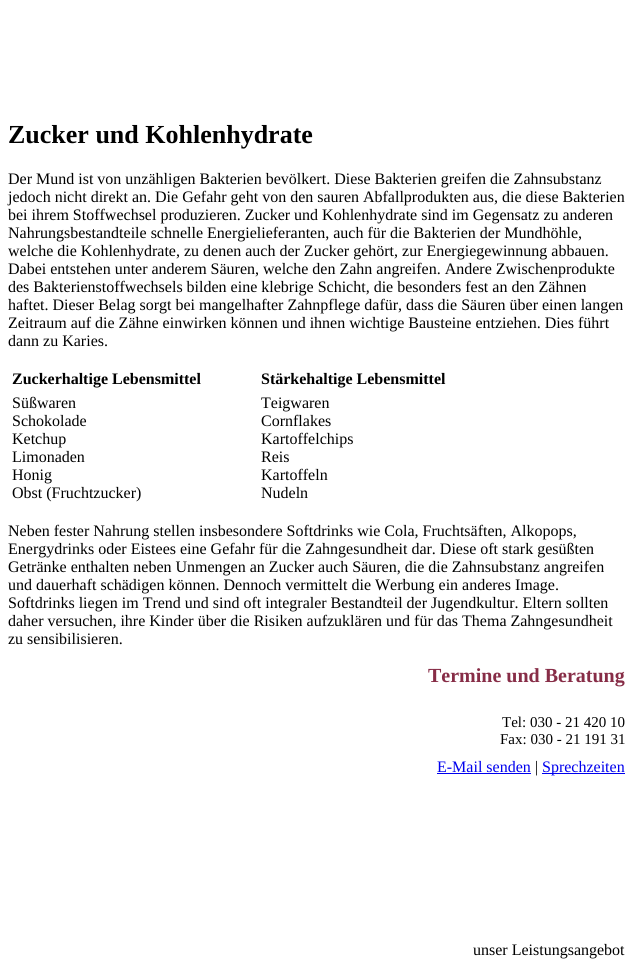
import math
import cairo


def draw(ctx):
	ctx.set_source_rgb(1, 1, 1)
	ctx.paint()
	ctx.select_font_face('Liberation Serif', cairo.FONT_SLANT_NORMAL, cairo.FONT_WEIGHT_BOLD)
	ctx.set_font_size(26)
	ctx.set_source_rgb(0, 0, 0)
	ctx.move_to(8, 143)
	ctx.show_text('Zucker und Kohlenhydrate')
	ctx.select_font_face('Liberation Serif')
	ctx.set_font_size(16)
	for x, y, s in [
		(8, 184, 'Der Mund ist von unzähligen Bakterien bevölkert. Diese Bakterien greifen die Zahnsubstanz'),
		(8, 202, 'jedoch nicht direkt an. Die Gefahr geht von den sauren Abfallprodukten aus, die diese Bakterien'),
		(8, 220, 'bei ihrem Stoffwechsel produzieren. Zucker und Kohlenhydrate sind im Gegensatz zu anderen'),
		(8, 238, 'Nahrungsbestandteile schnelle Energielieferanten, auch für die Bakterien der Mundhöhle,'),
		(8, 256, 'welche die Kohlenhydrate, zu denen auch der Zucker gehört, zur Energiegewinnung abbauen.'),
		(8, 274, 'Dabei entstehen unter anderem Säuren, welche den Zahn angreifen. Andere Zwischenprodukte'),
		(8, 292, 'des Bakterienstoffwechsels bilden eine klebrige Schicht, die besonders fest an den Zähnen'),
		(8, 310, 'haftet. Dieser Belag sorgt bei mangelhafter Zahnpflege dafür, dass die Säuren über einen langen'),
		(8, 328, 'Zeitraum auf die Zähne einwirken können und ihnen wichtige Bausteine entziehen. Dies führt'),
		(8, 346, 'dann zu Karies.'),
	]:
		ctx.move_to(x, y)
		ctx.show_text(s)
	ctx.select_font_face('Liberation Serif', cairo.FONT_SLANT_NORMAL, cairo.FONT_WEIGHT_BOLD)
	ctx.move_to(12, 384)
	ctx.show_text('Zuckerhaltige Lebensmittel')
	ctx.move_to(261, 384)
	ctx.show_text('Stärkehaltige Lebensmittel')
	ctx.select_font_face('Liberation Serif')
	for x, y, s in [
		(12, 408, 'Süßwaren'),
		(12, 426, 'Schokolade'),
		(12, 444, 'Ketchup'),
		(12, 462, 'Limonaden'),
		(12, 480, 'Honig'),
		(12, 498, 'Obst (Fruchtzucker)'),
		(261, 408, 'Teigwaren'),
		(261, 426, 'Cornflakes'),
		(261, 444, 'Kartoffelchips'),
		(261, 462, 'Reis'),
		(261, 480, 'Kartoffeln'),
		(261, 498, 'Nudeln'),
		(8, 536, 'Neben fester Nahrung stellen insbesondere Softdrinks wie Cola, Fruchtsäften, Alkopops,'),
		(8, 554, 'Energydrinks oder Eistees eine Gefahr für die Zahngesundheit dar. Diese oft stark gesüßten'),
		(8, 572, 'Getränke enthalten neben Unmengen an Zucker auch Säuren, die die Zahnsubstanz angreifen'),
		(8, 590, 'und dauerhaft schädigen können. Dennoch vermittelt die Werbung ein anderes Image.'),
		(8, 608, 'Softdrinks liegen im Trend und sind oft integraler Bestandteil der Jugendkultur. Eltern sollten'),
		(8, 626, 'daher versuchen, ihre Kinder über die Risiken aufzuklären und für das Thema Zahngesundheit'),
		(8, 644, 'zu sensibilisieren.'),
	]:
		ctx.move_to(x, y)
		ctx.show_text(s)
	ctx.select_font_face('Liberation Serif', cairo.FONT_SLANT_NORMAL, cairo.FONT_WEIGHT_BOLD)
	ctx.set_font_size(20)
	ctx.set_source_rgb(0.529, 0.176, 0.278)
	ctx.move_to(428, 682)
	ctx.show_text('Termine und Beratung')
	ctx.select_font_face('Liberation Serif')
	ctx.set_font_size(15)
	ctx.set_source_rgb(0, 0, 0)
	ctx.move_to(502, 727)
	ctx.show_text('Tel: 030 - 21 420 10')
	ctx.move_to(500, 744)
	ctx.show_text('Fax: 030 - 21 191 31')
	ctx.set_font_size(16)
	ctx.set_source_rgb(0, 0, 0.933)
	ctx.move_to(437, 772)
	ctx.show_text('E-Mail senden')
	ctx.rectangle(437, 773, 94, 1)
	ctx.fill()
	ctx.set_source_rgb(0, 0, 0)
	ctx.move_to(535, 772)
	ctx.show_text('|')
	ctx.set_source_rgb(0, 0, 0.933)
	ctx.rectangle(542, 773, 83, 1)
	ctx.fill()
	ctx.move_to(542, 772)
	ctx.show_text('Sprechzeiten')
	ctx.set_source_rgb(0, 0, 0)
	ctx.move_to(473, 955)
	ctx.show_text('unser Leistungsangebot')


surface = cairo.ImageSurface(cairo.FORMAT_RGB24, 633, 978)
ctx = cairo.Context(surface)
options = cairo.FontOptions()
options.set_hint_metrics(cairo.HINT_METRICS_OFF)
options.set_hint_style(cairo.HINT_STYLE_NONE)
ctx.set_font_options(options)
ctx.set_miter_limit(4)
draw(ctx)
surface.write_to_png('image.png')
